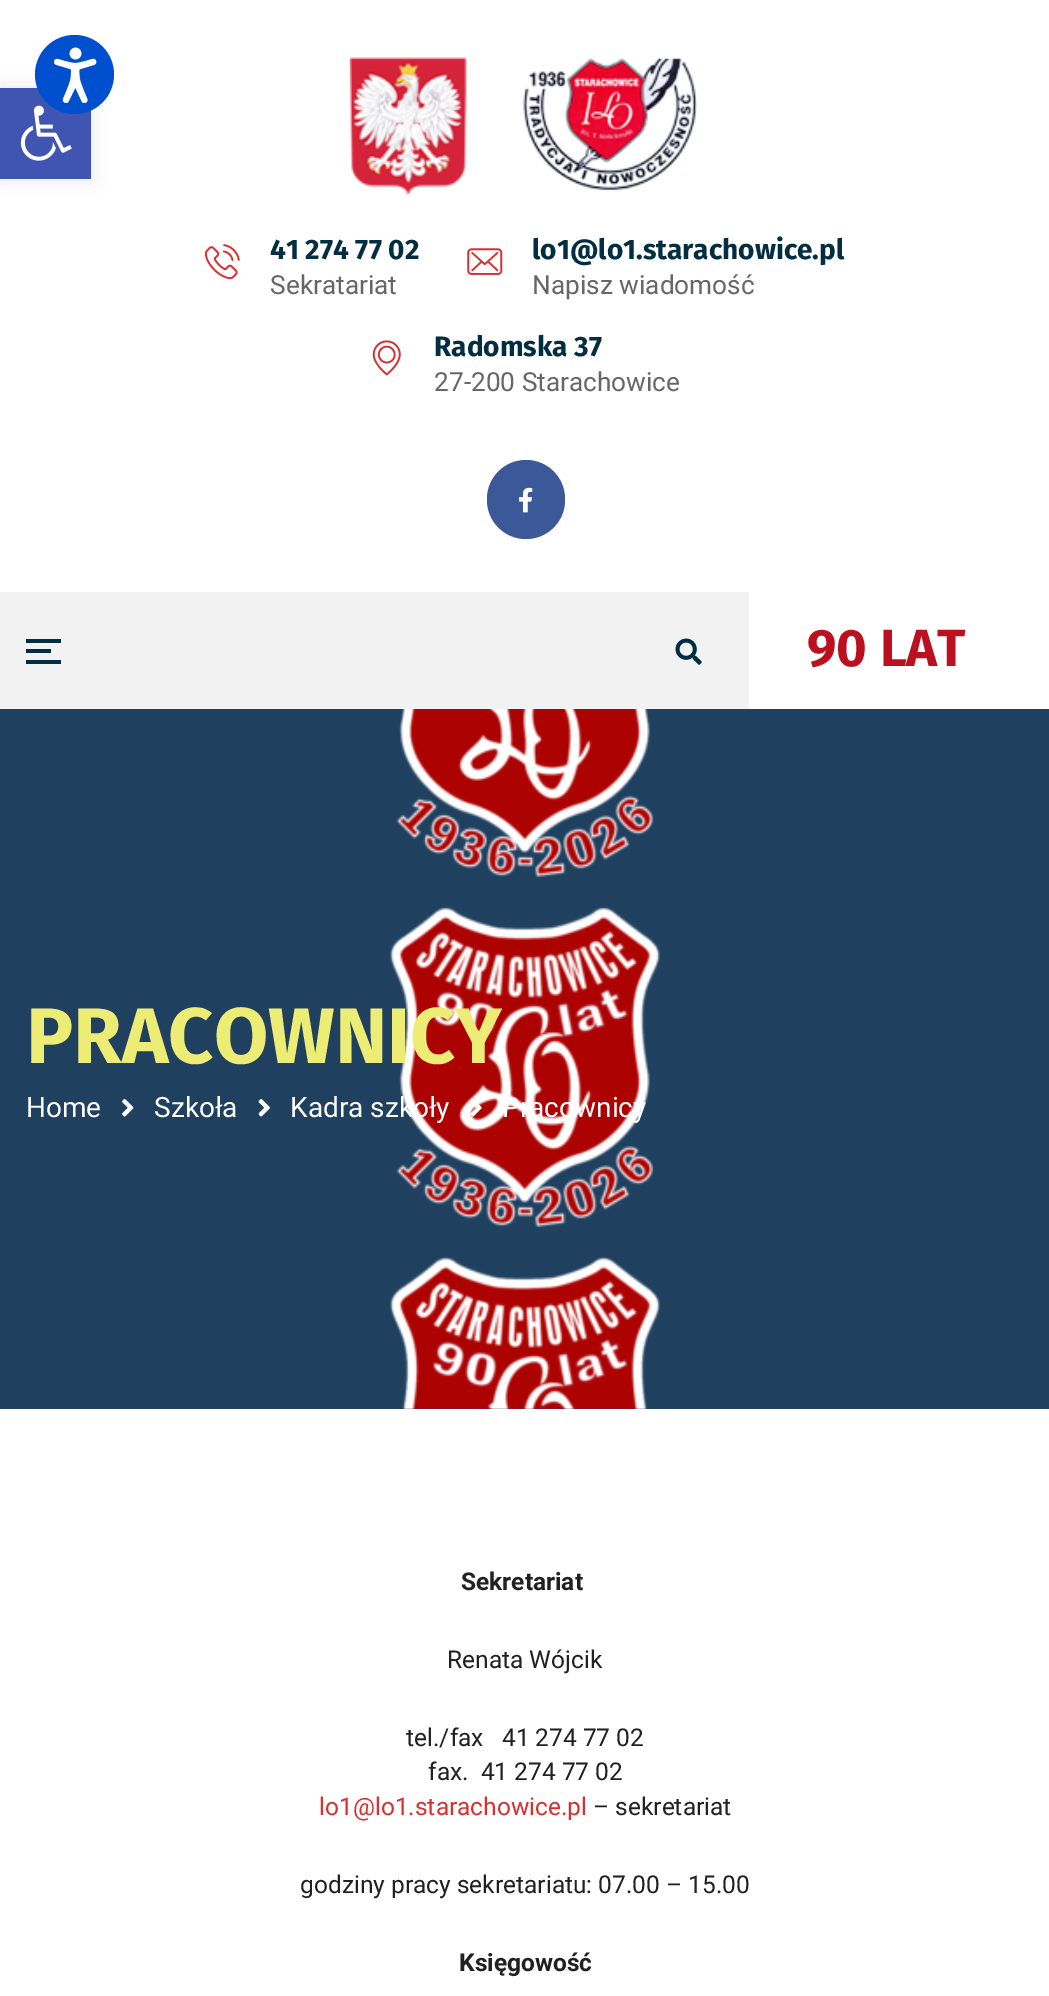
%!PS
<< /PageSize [1049 1996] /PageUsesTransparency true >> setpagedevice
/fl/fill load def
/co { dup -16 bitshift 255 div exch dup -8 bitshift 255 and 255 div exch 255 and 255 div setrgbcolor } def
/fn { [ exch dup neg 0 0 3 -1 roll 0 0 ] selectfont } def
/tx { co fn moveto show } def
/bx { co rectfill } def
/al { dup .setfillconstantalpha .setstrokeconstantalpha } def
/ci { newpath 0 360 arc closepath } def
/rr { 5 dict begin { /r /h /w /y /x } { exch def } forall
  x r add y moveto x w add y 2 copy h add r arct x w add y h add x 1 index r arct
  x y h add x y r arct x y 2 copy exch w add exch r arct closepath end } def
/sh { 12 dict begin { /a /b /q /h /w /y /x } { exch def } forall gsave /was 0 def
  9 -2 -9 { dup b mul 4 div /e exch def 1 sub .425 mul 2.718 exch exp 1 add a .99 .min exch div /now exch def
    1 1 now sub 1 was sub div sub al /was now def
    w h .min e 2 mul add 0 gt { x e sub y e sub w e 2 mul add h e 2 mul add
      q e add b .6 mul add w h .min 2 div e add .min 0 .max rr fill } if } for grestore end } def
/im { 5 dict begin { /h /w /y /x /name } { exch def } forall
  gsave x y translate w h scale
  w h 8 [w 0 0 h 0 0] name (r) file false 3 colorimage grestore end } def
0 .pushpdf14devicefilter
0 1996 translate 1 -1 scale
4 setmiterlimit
0 0 1049 1996 16#FFFFFF bx
16#000000 co
0 88 91 91 0 9 .1 sh
0 88 91 91 16#4054B2 bx
(media/2.raw) 20 105 52 56 im
16#004FCE co
74.5 74.5 39.5 ci fl
(media/1.raw) 53 47 44 56 im
(media/3.raw) 350 57 348 138 im
(media/4.raw) 204 244 36 36 im
(media/5.raw) 467 248 36 27 im
(media/6.raw) 372 340 29 36 im
16#3B5998 co
487 460 78 79 39 rr fl
(media/7.raw) 519 487 14 26 im
0 592 749 117 16#F2F2F2 bx
26 639 35 4 16#032E42 bx
26 649 25 4 16#032E42 bx
26 660 35 4 16#032E42 bx
(media/8.raw) 675 638 27 27 im
0 709 1049 700 16#204060 bx
(media/9.raw) 390 709 270 700 im
(media/10.raw) 122 1099 12 18 im
(media/11.raw) 258 1099 12 18 im
(media/12.raw) 470 1099 12 18 im
(41 274 77 02) 270 259 /FiraSans-Bold 28 16#032E42 tx
(Sekratariat) 270 294 /Roboto-Regular 26.25 16#676767 tx
(lo1@lo1.starachowice.pl) 532 259 /FiraSans-Bold 28 16#032E42 tx
(Napisz wiadomość) 532 294 /Roboto-Regular 26.25 16#676767 tx
(Radomska 37) 434 356 /FiraSans-Bold 28 16#032E42 tx
(27-200 Starachowice) 434 391 /Roboto-Regular 26.25 16#676767 tx
(90 LAT) 807 666 /FiraSans-Bold 52.5 16#BB1020 tx
(PRACOWNICY) 26 1063 /FiraSans-Bold 78.75 16#EDED76 tx
(Home) 26 1117 /Roboto-Regular 28 16#FFFFFF tx
(Szkoła) 154 1117 /Roboto-Regular 28 16#FFFFFF tx
(Kadra szkoły) 290 1117 /Roboto-Regular 28 16#FFFFFF tx
(Pracownicy) 502 1117 /Roboto-Regular 28 16#FFFFFF tx
(Sekretariat) 461 1590 /Roboto-Bold 24.5 16#212121 tx
(Renata Wójcik) 447 1668 /Roboto-Regular 24.5 16#212121 tx
(tel./fax   41 274 77 02) 406 1746 /Roboto-Regular 24.5 16#212121 tx
(fax.  41 274 77 02) 428 1780 /Roboto-Regular 24.5 16#212121 tx
(lo1@lo1.starachowice.pl) 319 1815 /Roboto-Regular 24.5 16#D83030 tx
(– sekretariat) 593 1815 /Roboto-Regular 24.5 16#212121 tx
(godziny pracy sekretariatu: 07.00 – 15.00) 300 1893 /Roboto-Regular 24.5 16#212121 tx
(Księgowość) 459 1971 /Roboto-Bold 24.5 16#212121 tx
.poppdf14devicefilter showpage
